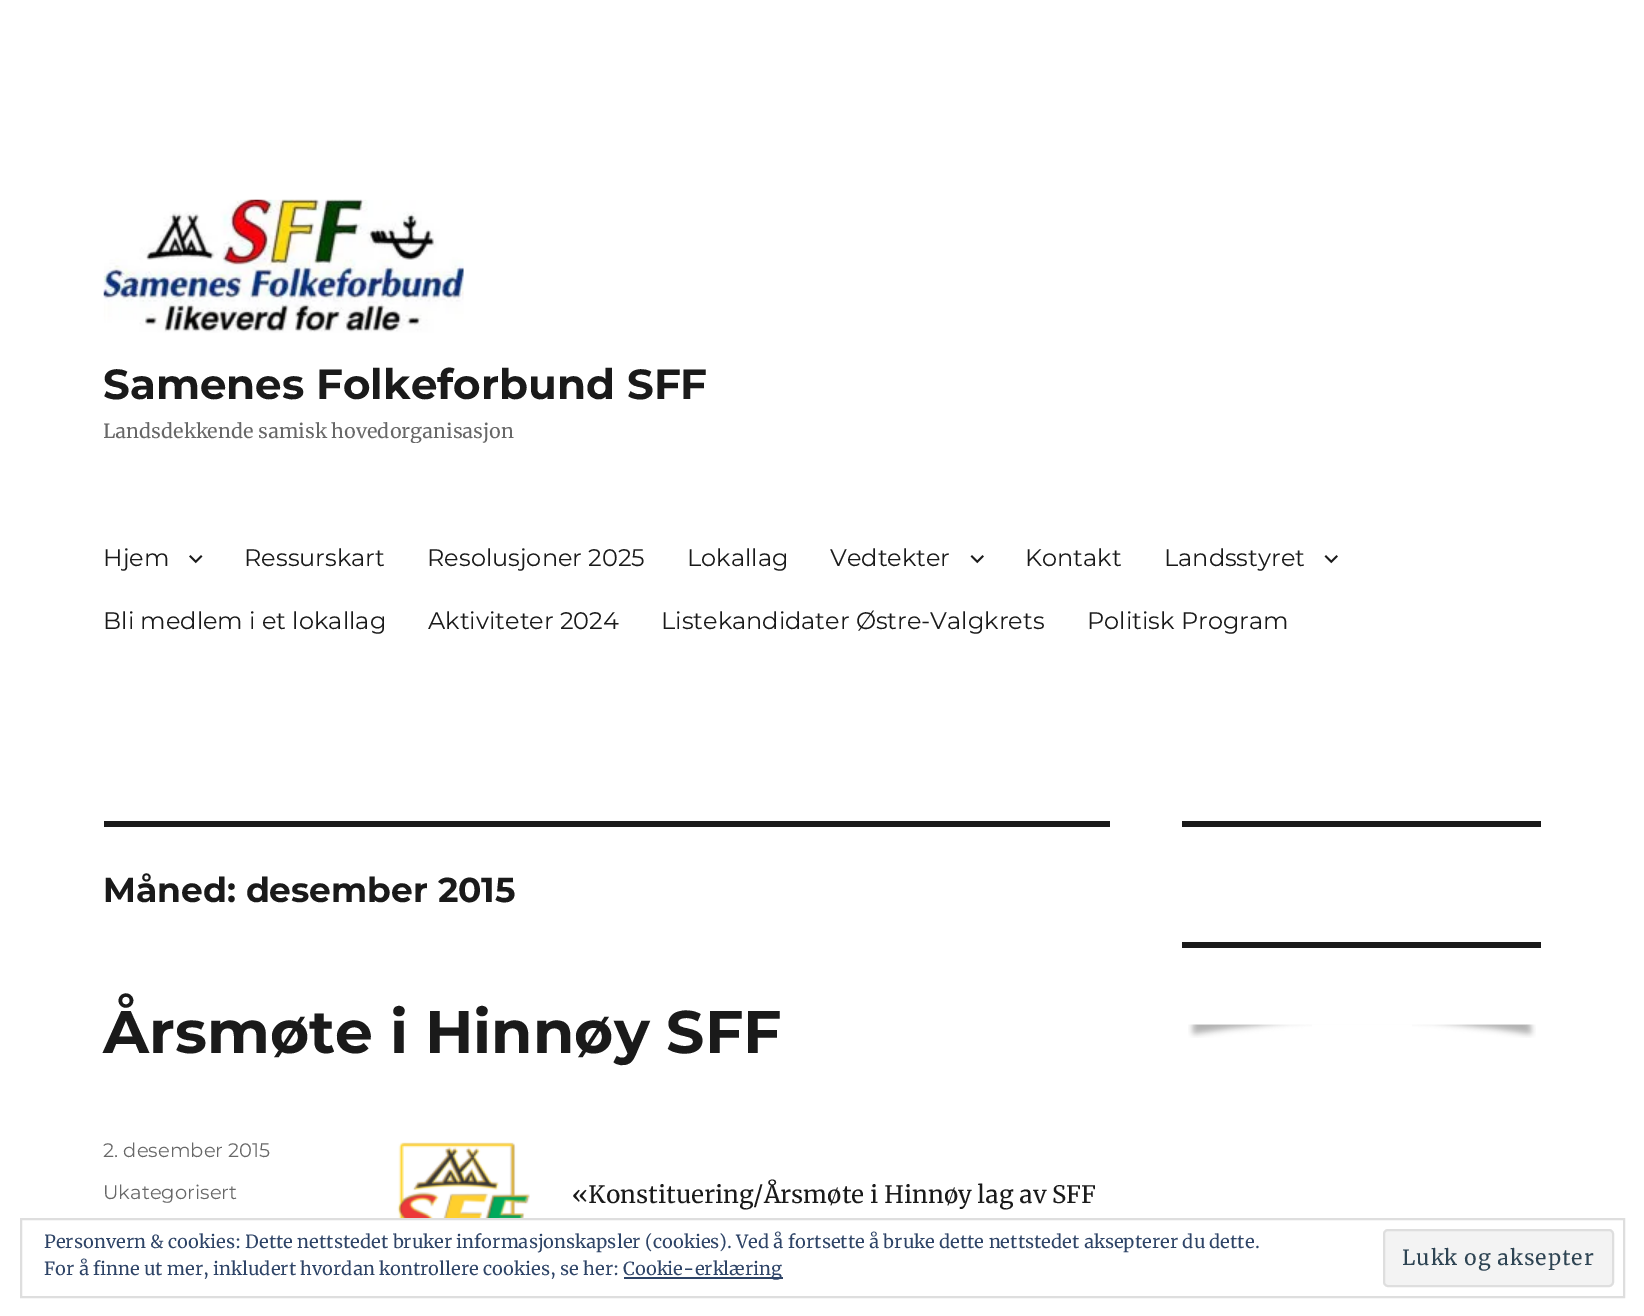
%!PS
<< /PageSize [1644 1316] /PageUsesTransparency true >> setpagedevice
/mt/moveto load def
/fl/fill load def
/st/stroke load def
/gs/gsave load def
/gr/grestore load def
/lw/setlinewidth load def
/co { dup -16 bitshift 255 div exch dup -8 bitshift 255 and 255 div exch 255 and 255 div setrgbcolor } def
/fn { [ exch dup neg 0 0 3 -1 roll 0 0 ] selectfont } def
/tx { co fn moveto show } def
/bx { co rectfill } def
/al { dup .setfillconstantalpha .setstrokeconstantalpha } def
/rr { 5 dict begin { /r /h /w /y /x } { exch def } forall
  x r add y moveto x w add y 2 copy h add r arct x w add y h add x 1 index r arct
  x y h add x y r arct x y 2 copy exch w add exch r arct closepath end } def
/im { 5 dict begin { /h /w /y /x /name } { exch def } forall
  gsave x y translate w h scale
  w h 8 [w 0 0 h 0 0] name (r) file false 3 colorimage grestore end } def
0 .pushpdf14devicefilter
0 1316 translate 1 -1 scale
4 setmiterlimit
0 0 1644 1316 16#FFFFFF bx
(media/1.raw) 103 199 361 134 im
(media/2.raw) 189 555 14 9 im
(media/3.raw) 970 555 14 9 im
(media/3.raw) 1324 555 14 9 im
104 821 1006 6 16#1A1A1A bx
(media/4.raw) 391 1142 139 76 im
1182 821 359 6 16#1A1A1A bx
1182 942 359 6 16#1A1A1A bx
(media/5.raw) 1188 1024 124 14 im
(media/6.raw) 1412 1024 124 14 im
0.1 al
1197 1024 329 1 16#F6F6F6 bx
1 al
16#DEDEDE co
2 lw
21 1219 1603 78 rectstroke
624 1277 159 2 16#2E4467 bx
16#F3F3F3 co
1384 1230 229 56 4 rr gs fl gr
16#DEDEDE co
st
(Samenes Folkeforbund SFF) 103 399 /Montserrat-Thin 42 16#1A1A1A tx
gs
104 200 604 243 rectclip
(Landsdekkende samisk hovedorganisasjon) 103 438 /Merriweather-Regular 19.5 16#686868 tx
gr
(Hjem) 103 566 /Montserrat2-Thin 24 16#1A1A1A tx
(Ressurskart) 244 566 /Montserrat2-Thin 24 16#1A1A1A tx
(Resolusjoner 2025) 427 566 /Montserrat2-Thin 24 16#1A1A1A tx
(Lokallag) 687 566 /Montserrat2-Thin 24 16#1A1A1A tx
(Vedtekter) 830 566 /Montserrat2-Thin 24 16#1A1A1A tx
(Kontakt) 1025 566 /Montserrat2-Thin 24 16#1A1A1A tx
(Landsstyret) 1164 566 /Montserrat2-Thin 24 16#1A1A1A tx
(Bli medlem i et lokallag) 103 629 /Montserrat2-Thin 24 16#1A1A1A tx
(Aktiviteter 2024) 428 629 /Montserrat2-Thin 24 16#1A1A1A tx
(Listekandidater Østre-Valgkrets) 661 629 /Montserrat2-Thin 24 16#1A1A1A tx
(Politisk Program) 1087 629 /Montserrat2-Thin 24 16#1A1A1A tx
(Måned: desember 2015) 103 902 /Montserrat-Thin 34.5 16#1A1A1A tx
(Årsmøte i Hinnøy SFF) 103 1053 /Montserrat-Thin 60 16#1A1A1A tx
(2. desember 2015) 103 1157 /Montserrat2-Thin 19.5 16#686868 tx
(Ukategorisert) 103 1199 /Montserrat2-Thin 19.5 16#686868 tx
(«Konstituering/Årsmøte i Hinnøy lag av SFF) 572 1203 /Merriweather-Regular 24 16#1A1A1A tx
(Personvern & cookies: Dette nettstedet bruker informasjonskapsler \(cookies\). Ved å fortsette å bruke dette nettstedet aksepterer du dette.) 44 1248 /Merriweather-Regular 18 16#2E4467 tx
(For å finne ut mer, inkludert hvordan kontrollere cookies, se her:) 44 1275 /Merriweather-Regular 18 16#2E4467 tx
(Cookie-erklæring) 623 1275 /Merriweather-Regular 18 16#2E4467 tx
/Merriweather-Regular 21 fn
16#2E4453 co
1402 1265 mt 1 0 (Lukk og aksepter) ashow
.poppdf14devicefilter showpage
